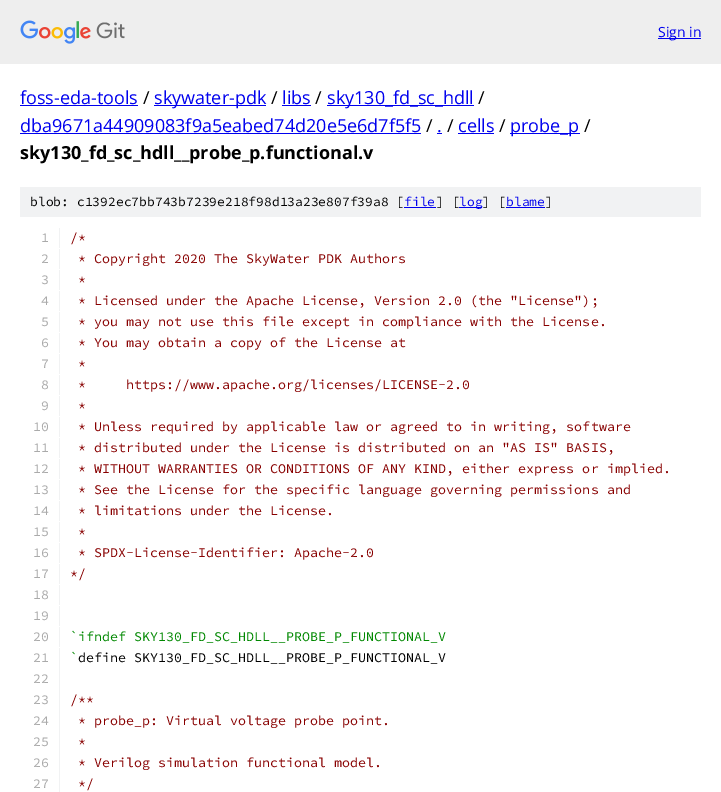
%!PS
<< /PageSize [721 792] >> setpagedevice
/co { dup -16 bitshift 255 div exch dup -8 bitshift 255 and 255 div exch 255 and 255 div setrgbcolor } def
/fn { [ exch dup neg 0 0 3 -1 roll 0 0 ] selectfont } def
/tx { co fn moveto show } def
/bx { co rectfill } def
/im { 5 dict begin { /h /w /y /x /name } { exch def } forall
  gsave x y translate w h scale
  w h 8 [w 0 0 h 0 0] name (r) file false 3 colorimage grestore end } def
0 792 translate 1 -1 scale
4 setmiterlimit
0 0 721 792 16#FFFFFF bx
0 0 721 64 16#EEEEEE bx
(media/1.raw) 20 20 105 24 im
658 38 43 1 16#0000EE bx
20 105 118 1 16#0000EE bx
154 105 112 1 16#0000EE bx
282 105 29 1 16#0000EE bx
327 105 147 1 16#0000EE bx
20 133 401 1 16#0000EE bx
437 133 5 1 16#0000EE bx
458 133 36 1 16#0000EE bx
510 133 70 1 16#0000EE bx
20 187 681 30 16#F1F2F3 bx
404 207 32 1 16#0000EE bx
459 207 23 1 16#0000EE bx
506 207 39 1 16#0000EE bx
59 228 1 20 16#F1F2F3 bx
59 249 1 20 16#F1F2F3 bx
59 270 1 20 16#F1F2F3 bx
59 291 1 20 16#F1F2F3 bx
59 312 1 20 16#F1F2F3 bx
59 333 1 20 16#F1F2F3 bx
59 354 1 20 16#F1F2F3 bx
59 375 1 20 16#F1F2F3 bx
59 396 1 20 16#F1F2F3 bx
59 417 1 20 16#F1F2F3 bx
59 438 1 20 16#F1F2F3 bx
59 459 1 20 16#F1F2F3 bx
59 480 1 20 16#F1F2F3 bx
59 501 1 20 16#F1F2F3 bx
59 522 1 20 16#F1F2F3 bx
59 543 1 20 16#F1F2F3 bx
59 564 1 20 16#F1F2F3 bx
59 585 1 20 16#F1F2F3 bx
59 606 1 20 16#F1F2F3 bx
59 627 1 20 16#F1F2F3 bx
59 648 1 144 16#F1F2F3 bx
(Sign in) 658 37 /OpenSans-Regular 14 16#0000EE tx
(foss-eda-tools) 20 104 /OpenSans-Regular 18 16#0000EE tx
(/) 143 104 /OpenSans-Regular 18 16#000000 tx
(skywater-pdk) 154 104 /OpenSans-Regular 18 16#0000EE tx
(/) 271 104 /OpenSans-Regular 18 16#000000 tx
(libs) 282 104 /OpenSans-Regular 18 16#0000EE tx
(/) 315 104 /OpenSans-Regular 18 16#000000 tx
(sky130_fd_sc_hdll) 327 104 /OpenSans-Regular 18 16#0000EE tx
(/) 478 104 /OpenSans-Regular 18 16#000000 tx
(dba9671a44909083f9a5eabed74d20e5e6d7f5f5) 20 132 /OpenSans-Regular 18 16#0000EE tx
(/) 426 132 /OpenSans-Regular 18 16#000000 tx
(.) 437 132 /OpenSans-Regular 18 16#0000EE tx
(/) 447 132 /OpenSans-Regular 18 16#000000 tx
(cells) 458 132 /OpenSans-Regular 18 16#0000EE tx
(/) 499 132 /OpenSans-Regular 18 16#000000 tx
(probe_p) 510 132 /OpenSans-Regular 18 16#0000EE tx
(/) 584 132 /OpenSans-Regular 18 16#000000 tx
(sky130_fd_sc_hdll__probe_p.functional.v) 20 159 /OpenSans-Bold 18 16#000000 tx
(blob: c1392ec7bb743b7239e218f98d13a23e807f39a8 [) 30 206 /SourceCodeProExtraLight-ExtraLight 13 16#000000 tx
(file) 404 206 /SourceCodeProExtraLight-ExtraLight 13 16#0000EE tx
(] [) 436 206 /SourceCodeProExtraLight-ExtraLight 13 16#000000 tx
(log) 459 206 /SourceCodeProExtraLight-ExtraLight 13 16#0000EE tx
(] [) 482 206 /SourceCodeProExtraLight-ExtraLight 13 16#000000 tx
(blame) 506 206 /SourceCodeProExtraLight-ExtraLight 13 16#0000EE tx
(]) 545 206 /SourceCodeProExtraLight-ExtraLight 13 16#000000 tx
(1) 41 242 /SourceCodeProExtraLight-ExtraLight 13.35 16#AAAAAA tx
(/*) 70 242 /SourceCodeProExtraLight-ExtraLight 13.35 16#880000 tx
(2) 41 263 /SourceCodeProExtraLight-ExtraLight 13.35 16#AAAAAA tx
(* Copyright 2020 The SkyWater PDK Authors) 78 263 /SourceCodeProExtraLight-ExtraLight 13.35 16#880000 tx
(3) 41 284 /SourceCodeProExtraLight-ExtraLight 13.35 16#AAAAAA tx
(*) 78 284 /SourceCodeProExtraLight-ExtraLight 13.35 16#880000 tx
(4) 41 305 /SourceCodeProExtraLight-ExtraLight 13.35 16#AAAAAA tx
(* Licensed under the Apache License, Version 2.0 \(the "License"\);) 78 305 /SourceCodeProExtraLight-ExtraLight 13.35 16#880000 tx
(5) 41 326 /SourceCodeProExtraLight-ExtraLight 13.35 16#AAAAAA tx
(* you may not use this file except in compliance with the License.) 78 326 /SourceCodeProExtraLight-ExtraLight 13.35 16#880000 tx
(6) 41 347 /SourceCodeProExtraLight-ExtraLight 13.35 16#AAAAAA tx
(* You may obtain a copy of the License at) 78 347 /SourceCodeProExtraLight-ExtraLight 13.35 16#880000 tx
(7) 41 368 /SourceCodeProExtraLight-ExtraLight 13.35 16#AAAAAA tx
(*) 78 368 /SourceCodeProExtraLight-ExtraLight 13.35 16#880000 tx
(8) 41 389 /SourceCodeProExtraLight-ExtraLight 13.35 16#AAAAAA tx
(*     https://www.apache.org/licenses/LICENSE-2.0) 78 389 /SourceCodeProExtraLight-ExtraLight 13.35 16#880000 tx
(9) 41 410 /SourceCodeProExtraLight-ExtraLight 13.35 16#AAAAAA tx
(*) 78 410 /SourceCodeProExtraLight-ExtraLight 13.35 16#880000 tx
(10) 33 431 /SourceCodeProExtraLight-ExtraLight 13.35 16#AAAAAA tx
(* Unless required by applicable law or agreed to in writing, software) 78 431 /SourceCodeProExtraLight-ExtraLight 13.35 16#880000 tx
(11) 33 452 /SourceCodeProExtraLight-ExtraLight 13.35 16#AAAAAA tx
(* distributed under the License is distributed on an "AS IS" BASIS,) 78 452 /SourceCodeProExtraLight-ExtraLight 13.35 16#880000 tx
(12) 33 473 /SourceCodeProExtraLight-ExtraLight 13.35 16#AAAAAA tx
(* WITHOUT WARRANTIES OR CONDITIONS OF ANY KIND, either express or implied.) 78 473 /SourceCodeProExtraLight-ExtraLight 13.35 16#880000 tx
(13) 33 494 /SourceCodeProExtraLight-ExtraLight 13.35 16#AAAAAA tx
(* See the License for the specific language governing permissions and) 78 494 /SourceCodeProExtraLight-ExtraLight 13.35 16#880000 tx
(14) 33 515 /SourceCodeProExtraLight-ExtraLight 13.35 16#AAAAAA tx
(* limitations under the License.) 78 515 /SourceCodeProExtraLight-ExtraLight 13.35 16#880000 tx
(15) 33 536 /SourceCodeProExtraLight-ExtraLight 13.35 16#AAAAAA tx
(*) 78 536 /SourceCodeProExtraLight-ExtraLight 13.35 16#880000 tx
(16) 33 557 /SourceCodeProExtraLight-ExtraLight 13.35 16#AAAAAA tx
(* SPDX-License-Identifier: Apache-2.0) 78 557 /SourceCodeProExtraLight-ExtraLight 13.35 16#880000 tx
(17) 33 578 /SourceCodeProExtraLight-ExtraLight 13.35 16#AAAAAA tx
(*/) 70 578 /SourceCodeProExtraLight-ExtraLight 13.35 16#880000 tx
(18) 33 599 /SourceCodeProExtraLight-ExtraLight 13.35 16#AAAAAA tx
(19) 33 620 /SourceCodeProExtraLight-ExtraLight 13.35 16#AAAAAA tx
(20) 33 641 /SourceCodeProExtraLight-ExtraLight 13.35 16#AAAAAA tx
(`ifndef SKY130_FD_SC_HDLL__PROBE_P_FUNCTIONAL_V) 70 641 /SourceCodeProExtraLight-ExtraLight 13.35 16#008800 tx
(21) 33 662 /SourceCodeProExtraLight-ExtraLight 13.35 16#AAAAAA tx
(`) 70 662 /SourceCodeProExtraLight-ExtraLight 13.35 16#008800 tx
(define SKY130_FD_SC_HDLL__PROBE_P_FUNCTIONAL_V) 78 662 /SourceCodeProExtraLight-ExtraLight 13.35 16#000000 tx
(22) 33 683 /SourceCodeProExtraLight-ExtraLight 13.35 16#AAAAAA tx
(23) 33 704 /SourceCodeProExtraLight-ExtraLight 13.35 16#AAAAAA tx
(/**) 70 704 /SourceCodeProExtraLight-ExtraLight 13.35 16#880000 tx
(24) 33 725 /SourceCodeProExtraLight-ExtraLight 13.35 16#AAAAAA tx
(* probe_p: Virtual voltage probe point.) 78 725 /SourceCodeProExtraLight-ExtraLight 13.35 16#880000 tx
(25) 33 746 /SourceCodeProExtraLight-ExtraLight 13.35 16#AAAAAA tx
(*) 78 746 /SourceCodeProExtraLight-ExtraLight 13.35 16#880000 tx
(26) 33 767 /SourceCodeProExtraLight-ExtraLight 13.35 16#AAAAAA tx
(* Verilog simulation functional model.) 78 767 /SourceCodeProExtraLight-ExtraLight 13.35 16#880000 tx
(27) 33 788 /SourceCodeProExtraLight-ExtraLight 13.35 16#AAAAAA tx
(*/) 78 788 /SourceCodeProExtraLight-ExtraLight 13.35 16#880000 tx
showpage
